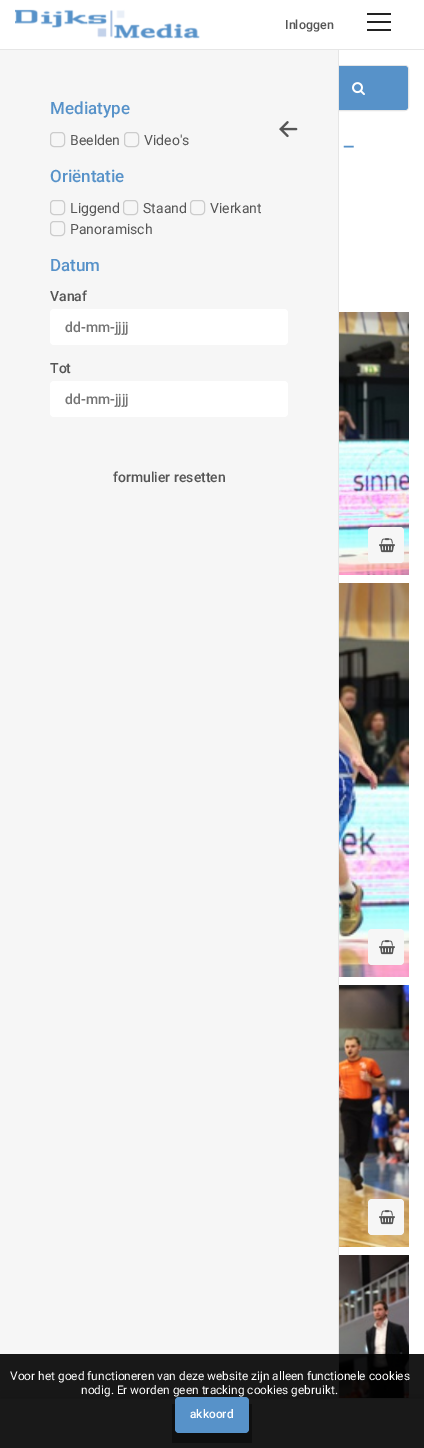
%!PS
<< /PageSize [424 1448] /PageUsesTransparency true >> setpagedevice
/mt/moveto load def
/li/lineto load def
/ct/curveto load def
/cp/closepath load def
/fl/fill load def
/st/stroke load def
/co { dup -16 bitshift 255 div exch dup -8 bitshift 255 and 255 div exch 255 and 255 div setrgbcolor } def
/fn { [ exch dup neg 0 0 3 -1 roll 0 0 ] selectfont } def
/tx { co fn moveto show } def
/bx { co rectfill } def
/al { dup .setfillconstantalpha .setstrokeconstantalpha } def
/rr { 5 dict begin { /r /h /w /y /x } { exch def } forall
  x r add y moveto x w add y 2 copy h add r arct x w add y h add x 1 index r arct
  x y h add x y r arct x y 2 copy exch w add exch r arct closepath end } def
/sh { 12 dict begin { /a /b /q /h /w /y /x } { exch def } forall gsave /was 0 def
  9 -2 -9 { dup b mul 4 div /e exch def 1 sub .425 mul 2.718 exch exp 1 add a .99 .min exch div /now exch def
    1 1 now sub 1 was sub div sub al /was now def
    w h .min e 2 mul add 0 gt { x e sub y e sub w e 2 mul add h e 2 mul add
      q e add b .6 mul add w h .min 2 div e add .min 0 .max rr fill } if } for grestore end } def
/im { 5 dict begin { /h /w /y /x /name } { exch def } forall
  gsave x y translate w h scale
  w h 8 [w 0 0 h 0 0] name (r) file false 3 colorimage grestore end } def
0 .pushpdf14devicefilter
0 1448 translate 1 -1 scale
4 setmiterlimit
0 0 424 1448 16#FFFFFF bx
0 49 424 1 16#E6E6E6 bx
(media/1.raw) 15 9 185 30 im
367 13 24 2 16#222222 bx
367 21 24 2 16#222222 bx
367 29 24 2 16#222222 bx
16#E6E6E6 co
15.5 65.5 393 45 3.5 rr st
16#5792C9 co
308 66 mt 405 66 li 406.5 66 408 67.5 408 69 ct 408 107 li 408 108.5 406.5 110 405 110 ct 308 110 li cp fl
0 50 338 1348 16#F6F6F6 bx
338 50 1 1348 16#E6E6E6 bx
(media/8.raw) 339 1255 70 143 im
16#000000 co
0 1403 424 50 0 7.5 .4 sh
0 1399 424 49 16#FFFFFF bx
0 1398 424 1 16#E6E6E6 bx
172 1404 80 39 16#999999 bx
16#CCCCCC co
50.5 132.5 14 14 3.5 rr st
124.5 132.5 14 14 3.5 rr st
50.5 200.5 14 14 3.5 rr st
123.5 200.5 14 14 3.5 rr st
190.5 200.5 14 14 3.5 rr st
50.5 221.5 14 14 3.5 rr st
16#FFFFFF co
50 309 238 36 4 rr fl
50 381 238 36 4 rr fl
(media/2.raw) 279 121 19 17 im
(media/3.raw) 352 82 13 13 im
(media/4.raw) 339 312 70 263 im
16#F6F6F6 co
368 527 36 36 4 rr fl
(media/5.raw) 379 538 16 15 im
(media/6.raw) 339 583 70 394 im
368 929 36 36 4 rr fl
(media/5.raw) 379 940 16 15 im
(media/7.raw) 339 985 70 262 im
368 1199 36 36 4 rr fl
(media/5.raw) 379 1210 16 15 im
0.9 al
0 1354 424 94 16#000000 bx
1 al
16#5792C9 co
175 1397 74 36 4 rr fl
(Inloggen) 285 29 /Roboto-Medium 12.5 16#555555 tx
(Mediatype) 50 114 /Roboto-Medium 17 16#5792C9 tx
(Beelden) 70 145 /Roboto-Regular 14 16#555555 tx
(Video's) 144 145 /Roboto-Regular 14 16#555555 tx
(Oriëntatie) 50 182 /Roboto-Medium 17 16#5792C9 tx
(Liggend) 70 213 /Roboto-Regular 14 16#555555 tx
(Staand) 143 213 /Roboto-Regular 14 16#555555 tx
(Vierkant) 210 213 /Roboto-Regular 14 16#555555 tx
(Panoramisch) 70 234 /Roboto-Regular 14 16#555555 tx
(Datum) 50 271 /Roboto-Medium 17 16#5792C9 tx
(Vanaf) 50 301 /Roboto-Medium 14 16#555555 tx
(dd-mm-jjjj) 65 332 /Roboto-Medium 14 16#757575 tx
(Tot) 50 373 /Roboto-Medium 14 16#555555 tx
(dd-mm-jjjj) 65 404 /Roboto-Medium 14 16#757575 tx
(formulier resetten) 113 482 /Roboto-Medium 14 16#555555 tx
(-) 342 158 /OpenSans-Light 42 16#5792C9 tx
(Voor het goed functioneren van deze website zijn alleen functionele cookies) 10 1380 /Roboto-Regular 11.9 16#FFFFFF tx
(nodig. Er worden geen tracking cookies gebruikt.) 81 1394 /Roboto-Regular 11.9 16#FFFFFF tx
(akkoord) 190 1418 /Roboto-Medium 11.9 16#FFFFFF tx
.poppdf14devicefilter showpage
